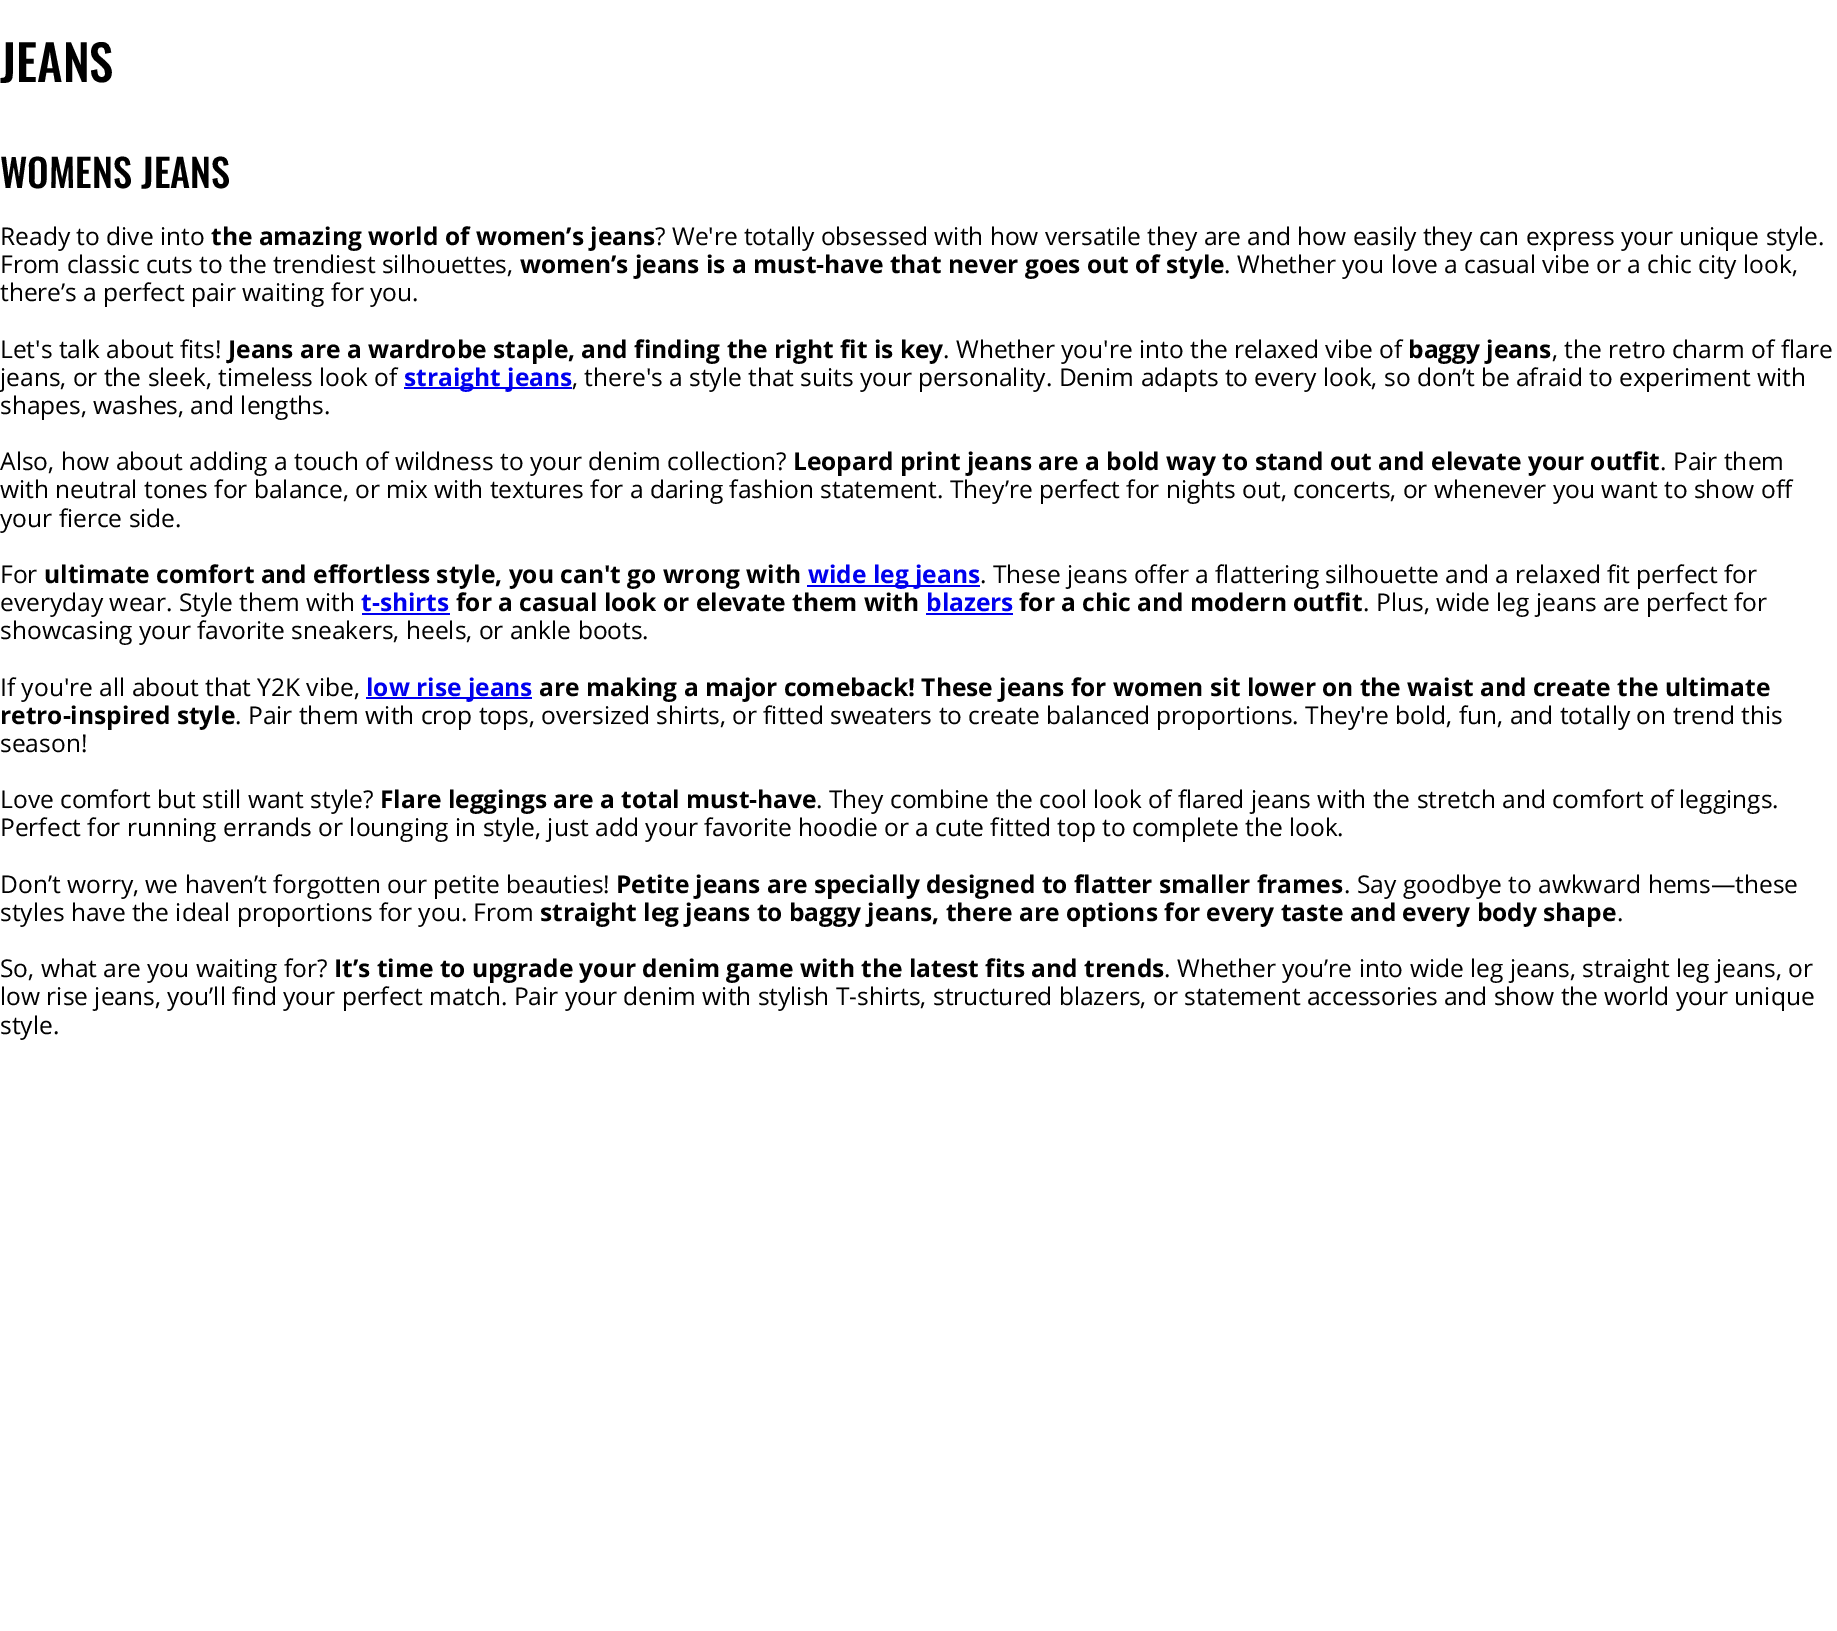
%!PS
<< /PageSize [1837 1631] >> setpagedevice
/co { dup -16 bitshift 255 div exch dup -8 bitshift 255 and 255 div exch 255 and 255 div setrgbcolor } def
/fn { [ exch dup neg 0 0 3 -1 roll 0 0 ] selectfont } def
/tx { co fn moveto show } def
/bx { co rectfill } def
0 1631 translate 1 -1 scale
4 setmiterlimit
0 0 1837 1631 16#FFFFFF bx
404 387 168 2 16#0000EE bx
807 585 173 2 16#0000EE bx
362 613 88 2 16#0000EE bx
926 613 87 2 16#0000EE bx
366 697 166 2 16#0000EE bx
(JEANS) 0 82 /Oswald-Medium 49 16#000000 tx
(WOMENS JEANS) 0 188 /Oswald-Medium 38.5 16#000000 tx
(Ready to dive into) 0 245 /OpenSans-Regular 24.5 16#000000 tx
(the amazing world of women’s jeans) 211 245 /OpenSans-Bold 24.5 16#000000 tx
(? We're totally obsessed with how versatile they are and how easily they can express your unique style.) 655 245 /OpenSans-Regular 24.5 16#000000 tx
(From classic cuts to the trendiest silhouettes,) 0 273 /OpenSans-Regular 24.5 16#000000 tx
(women’s jeans is a must-have that never goes out of style) 520 273 /OpenSans-Bold 24.5 16#000000 tx
(. Whether you love a casual vibe or a chic city look,) 1224 273 /OpenSans-Regular 24.5 16#000000 tx
(there’s a perfect pair waiting for you.) 0 301 /OpenSans-Regular 24.5 16#000000 tx
(Let's talk about fits!) 0 358 /OpenSans-Regular 24.5 16#000000 tx
(Jeans are a wardrobe staple, and finding the right fit is key) 228 358 /OpenSans-Bold 24.5 16#000000 tx
(. Whether you're into the relaxed vibe of) 943 358 /OpenSans-Regular 24.5 16#000000 tx
(baggy jeans) 1408 358 /OpenSans-Bold 24.5 16#000000 tx
(, the retro charm of flare) 1552 358 /OpenSans-Regular 24.5 16#000000 tx
(jeans, or the sleek, timeless look of) 0 386 /OpenSans-Regular 24.5 16#000000 tx
(straight jeans) 404 386 /OpenSans-Bold 24.5 16#0000EE tx
(, there's a style that suits your personality. Denim adapts to every look, so don’t be afraid to experiment with) 572 386 /OpenSans-Regular 24.5 16#000000 tx
(shapes, washes, and lengths.) 0 414 /OpenSans-Regular 24.5 16#000000 tx
(Also, how about adding a touch of wildness to your denim collection?) 0 470 /OpenSans-Regular 24.5 16#000000 tx
(Leopard print jeans are a bold way to stand out and elevate your outfit) 793 470 /OpenSans-Bold 24.5 16#000000 tx
(. Pair them) 1660 470 /OpenSans-Regular 24.5 16#000000 tx
(with neutral tones for balance, or mix with textures for a daring fashion statement. They’re perfect for nights out, concerts, or whenever you want to show off) 0 498 /OpenSans-Regular 24.5 16#000000 tx
(your fierce side.) 0 527 /OpenSans-Regular 24.5 16#000000 tx
(For) 0 583 /OpenSans-Regular 24.5 16#000000 tx
(ultimate comfort and effortless style, you can't go wrong with) 44 583 /OpenSans-Bold 24.5 16#000000 tx
(wide leg jeans) 808 583 /OpenSans-Bold 24.5 16#0000EE tx
(. These jeans offer a flattering silhouette and a relaxed fit perfect for) 980 583 /OpenSans-Regular 24.5 16#000000 tx
(everyday wear. Style them with) 0 611 /OpenSans-Regular 24.5 16#000000 tx
(t-shirts) 361 611 /OpenSans-Bold 24.5 16#0000EE tx
(for a casual look or elevate them with) 456 611 /OpenSans-Bold 24.5 16#000000 tx
(blazers) 926 611 /OpenSans-Bold 24.5 16#0000EE tx
(for a chic and modern outfit) 1019 611 /OpenSans-Bold 24.5 16#000000 tx
(. Plus, wide leg jeans are perfect for) 1363 611 /OpenSans-Regular 24.5 16#000000 tx
(showcasing your favorite sneakers, heels, or ankle boots.) 0 639 /OpenSans-Regular 24.5 16#000000 tx
(If you're all about that Y2K vibe,) 0 696 /OpenSans-Regular 24.5 16#000000 tx
(low rise jeans) 366 696 /OpenSans-Bold 24.5 16#0000EE tx
(are making a major comeback! These jeans for women sit lower on the waist and create the ultimate) 539 696 /OpenSans-Bold 24.5 16#000000 tx
(retro-inspired style) 0 724 /OpenSans-Bold 24.5 16#000000 tx
(. Pair them with crop tops, oversized shirts, or fitted sweaters to create balanced proportions. They're bold, fun, and totally on trend this) 235 724 /OpenSans-Regular 24.5 16#000000 tx
(season!) 0 752 /OpenSans-Regular 24.5 16#000000 tx
(Love comfort but still want style?) 0 808 /OpenSans-Regular 24.5 16#000000 tx
(Flare leggings are a total must-have) 380 808 /OpenSans-Bold 24.5 16#000000 tx
(. They combine the cool look of flared jeans with the stretch and comfort of leggings.) 816 808 /OpenSans-Regular 24.5 16#000000 tx
(Perfect for running errands or lounging in style, just add your favorite hoodie or a cute fitted top to complete the look.) 0 836 /OpenSans-Regular 24.5 16#000000 tx
(Don’t worry, we haven’t forgotten our petite beauties!) 0 893 /OpenSans-Regular 24.5 16#000000 tx
(Petite jeans are specially designed to flatter smaller frames) 616 893 /OpenSans-Bold 24.5 16#000000 tx
(. Say goodbye to awkward hems—these) 1344 893 /OpenSans-Regular 24.5 16#000000 tx
(styles have the ideal proportions for you. From) 0 921 /OpenSans-Regular 24.5 16#000000 tx
(straight leg jeans to baggy jeans, there are options for every taste and every body shape) 540 921 /OpenSans-Bold 24.5 16#000000 tx
(.) 1617 921 /OpenSans-Regular 24.5 16#000000 tx
(So, what are you waiting for?) 0 977 /OpenSans-Regular 24.5 16#000000 tx
(It’s time to upgrade your denim game with the latest fits and trends) 334 977 /OpenSans-Bold 24.5 16#000000 tx
(. Whether you’re into wide leg jeans, straight leg jeans, or) 1164 977 /OpenSans-Regular 24.5 16#000000 tx
(low rise jeans, you’ll find your perfect match. Pair your denim with stylish T-shirts, structured blazers, or statement accessories and show the world your unique) 0 1005 /OpenSans-Regular 24.5 16#000000 tx
(style.) 0 1034 /OpenSans-Regular 24.5 16#000000 tx
showpage
